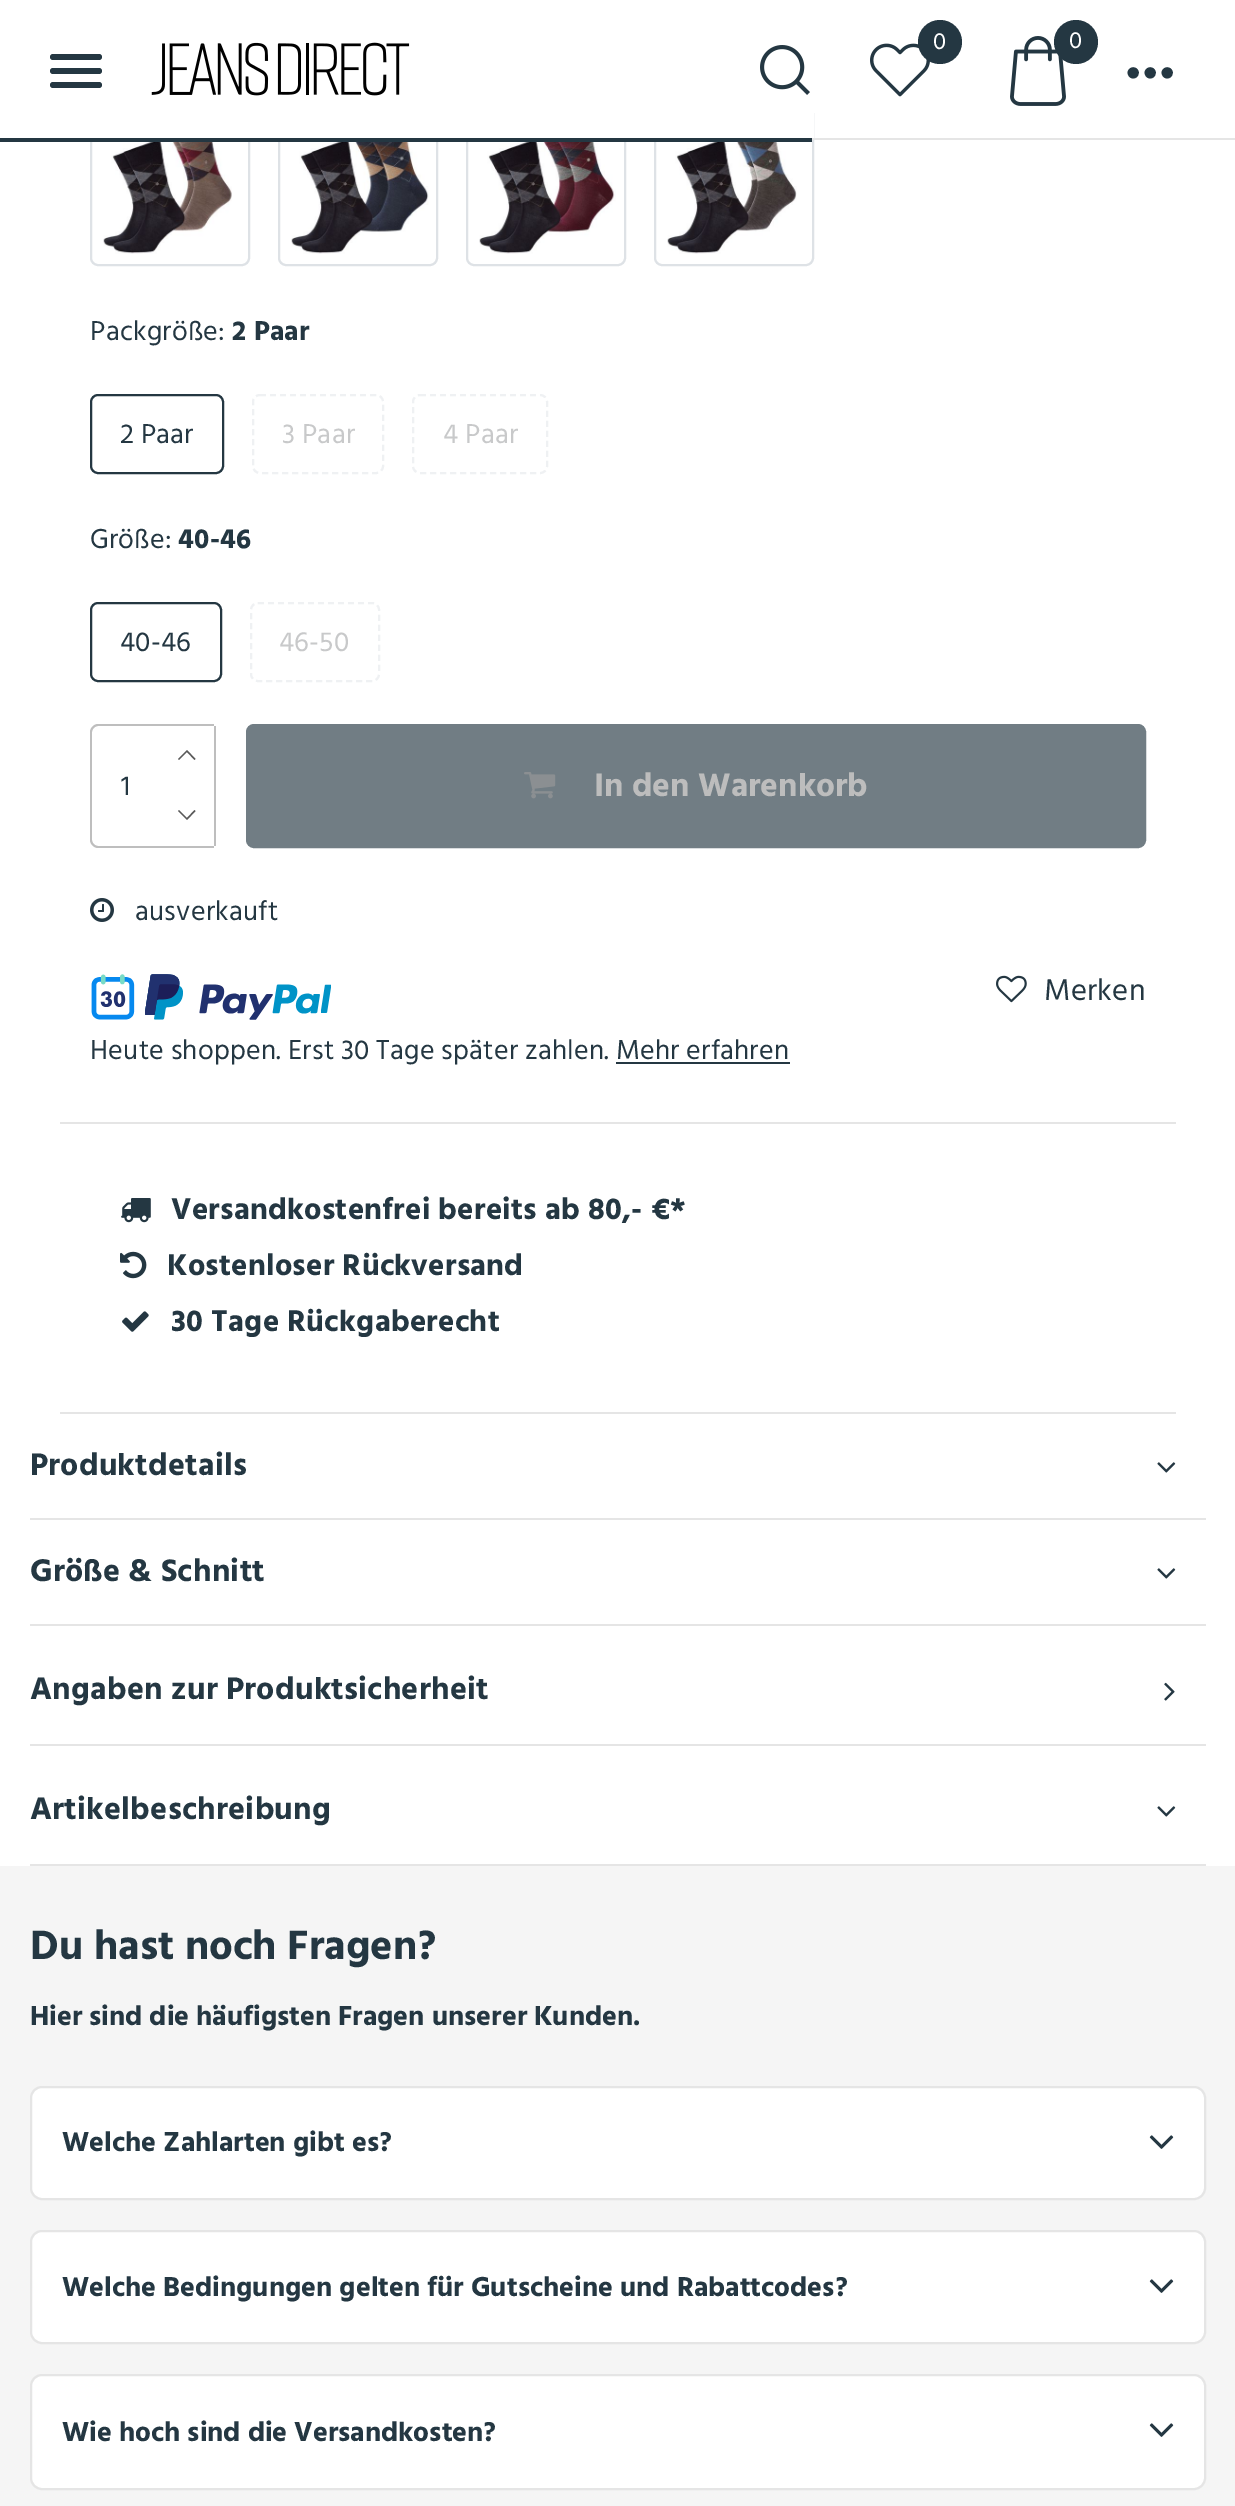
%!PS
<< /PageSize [1235 2506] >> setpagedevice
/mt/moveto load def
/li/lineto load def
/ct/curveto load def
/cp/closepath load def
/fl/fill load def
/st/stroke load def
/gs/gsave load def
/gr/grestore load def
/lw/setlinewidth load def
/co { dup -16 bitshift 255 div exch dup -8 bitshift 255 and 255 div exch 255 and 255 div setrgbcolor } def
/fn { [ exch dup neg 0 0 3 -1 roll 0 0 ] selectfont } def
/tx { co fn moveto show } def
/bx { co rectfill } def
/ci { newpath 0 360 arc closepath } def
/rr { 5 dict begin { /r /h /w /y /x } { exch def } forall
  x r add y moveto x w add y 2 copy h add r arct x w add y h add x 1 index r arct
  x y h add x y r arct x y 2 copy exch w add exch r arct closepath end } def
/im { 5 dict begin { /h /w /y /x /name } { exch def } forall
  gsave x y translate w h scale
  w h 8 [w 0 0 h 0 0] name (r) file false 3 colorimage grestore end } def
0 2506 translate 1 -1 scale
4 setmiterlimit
0 0 1235 2506 16#FFFFFF bx
16#DEE2E6 co
2 lw
91 107 158 158 7 rr st
279 107 158 158 7 rr st
467 107 158 158 7 rr st
655 107 158 158 7 rr st
90 106 724 32 16#FFFFFF bx
812 138 423 2 16#E5E5E5 bx
16#243742 co
50 68 52 6 3 rr fl
50 54 52 6 3 rr fl
50 82 52 6 3 rr fl
(media/1.raw) 151 42 259 54 im
(media/2.raw) 870 43 60 54 im
940 42 22 ci fl
(media/3.raw) 1010 36 56 70 im
1076 42 22 ci fl
(media/4.raw) 760 45 50 50 im
0 138 812 4 16#243742 bx
(media/5.raw) 103 142 129 112 im
(media/6.raw) 291 142 138 112 im
(media/7.raw) 479 142 137 112 im
(media/8.raw) 667 142 130 112 im
91 395 132 78 7 rr st
16#EFF1F3 co
[6 4] 0 setdash
260 395 mt 376 395 li 380 395 383 398 383 402 ct 383 466 li 383 470 380 473 376 473 ct 260 473 li 256 473 253 470 253 466 ct 253 402 li 253 398 256 395 260 395 ct cp st
420 395 mt 540 395 li 544 395 547 398 547 402 ct 547 466 li 547 470 544 473 540 473 ct 420 473 li 416 473 413 470 413 466 ct 413 402 li 413 398 416 395 420 395 ct cp st
16#243742 co
[] 0 setdash
91 603 130 78 7 rr st
16#EFF1F3 co
[6 4] 0 setdash
258 603 mt 372 603 li 376 603 379 606 379 610 ct 379 674 li 379 678 376 681 372 681 ct 258 681 li 254 681 251 678 251 674 ct 251 610 li 251 606 254 603 258 603 ct cp st
16#BEBEBE co
98 724 mt 160 724 li 160 848 li 98 848 li 94 848 90 844 90 840 ct 90 732 li 90 728 94 724 98 724 ct cp 98 726 mt 160 726 li 160 846 li 98 846 li 95 846 92 843 92 840 ct 92 732 li 92 729 95 726 98 726 ct cp eofill
160 724 54 2 16#BEBEBE bx
214 726 2 120 16#BEBEBE bx
160 846 54 2 16#BEBEBE bx
16#595959 co
194.5 760 mt 187 752 li 179 760 li 178 759 li 187 750 li 195.5 759 li cp fl
187 820 mt 178 811 li 179 810 li 187 818 li 194.5 810 li 195.5 811 li cp fl
16#717D84 co
247 725 898 122 7 rr gs fl gr
[] 0 setdash
st
(media/9.raw) 524 772 32 27 im
(media/10.raw) 90 898 24 24 im
(media/11.raw) 996 975 31 28 im
(media/12.raw) 91 974 240 46 im
616 1062 174 2 16#243742 bx
60 1122 1116 2 16#E5E5E5 bx
60 1412 1116 2 16#E5E5E5 bx
(media/13.raw) 121 1198 30 25 im
(media/14.raw) 120 1251 27 28 im
(media/15.raw) 122 1311 27 21 im
30 1518 1176 2 16#E5E5E5 bx
(media/16.raw) 1157 1462 19 11 im
30 1624 1176 2 16#E5E5E5 bx
(media/16.raw) 1157 1568 19 11 im
30 1744 1176 2 16#E5E5E5 bx
(media/17.raw) 1164 1682 11 19 im
30 1864 1176 2 16#E5E5E5 bx
(media/16.raw) 1157 1806 19 11 im
0 1866 1235 640 16#F5F5F5 bx
16#FFFFFF co
31 2087 1174 112 11 rr gs fl gr
16#E5E5E5 co
st
(media/18.raw) 1149 2135 25 14 im
16#FFFFFF co
31 2231 1174 112 11 rr gs fl gr
16#E5E5E5 co
st
(media/18.raw) 1149 2279 25 14 im
16#FFFFFF co
31 2375 1174 114 11 rr gs fl gr
16#E5E5E5 co
st
(media/18.raw) 1149 2423 25 14 im
/HindSiliguri-Regular 24 fn
16#FFFFFF co
933 49 mt .28 0 (0) ashow
1069 48 mt .28 0 (0) ashow
/HindSiliguri-Bold 64 fn
16#243742 co
1125 78 mt .28 0 (...) ashow
/HindSiliguri-Regular 28 fn
90 340 mt .28 0 (Packgröße:) ashow
/HindSiliguri-Bold 28 fn
232 340 mt .28 0 (2 Paar) ashow
/HindSiliguri-Regular 28 fn
120 443 mt .28 0 (2 Paar) ashow
16#C8C9CA co
282 443 mt .28 0 (3 Paar) ashow
443 443 mt .28 0 (4 Paar) ashow
16#243742 co
90 548 mt .28 0 (Größe:) ashow
/HindSiliguri-Bold 28 fn
178 548 mt .28 0 (40-46) ashow
/HindSiliguri-Regular 28 fn
120 651 mt .28 0 (40-46) ashow
16#C8C9CA co
279 651 mt .28 0 (46-50) ashow
(1) 121 795 /HindSiliguri-Regular 28 16#243742 tx
(In den Warenkorb) 594 796 /HindSiliguri-Bold 33.5 16#BDBDBD tx
/HindSiliguri-Regular 28 fn
16#243742 co
135 920 mt .28 0 (ausverkauft) ashow
/HindSiliguri-Regular 30.75 fn
1044 1000 mt .28 0 (Merken) ashow
/HindSiliguri-Regular 28 fn
90 1059 mt .28 0 (Heute shoppen. Erst 30 Tage später zahlen. Mehr erfahren) ashow
/HindSiliguri-Bold 30.75 fn
171 1219 mt .28 0 (Versandkostenfrei bereits ab 80,- €*) ashow
167 1275 mt .28 0 (Kostenloser Rückversand) ashow
171 1331 mt .28 0 (30 Tage Rückgaberecht) ashow
/HindSiliguri-Bold 32 fn
30 1475 mt .28 0 (Produktdetails) ashow
30 1581 mt .28 0 (Größe & Schnitt) ashow
30 1699 mt .28 0 (Angaben zur Produktsicherheit) ashow
30 1819 mt .28 0 (Artikelbeschreibung) ashow
(Du hast noch Fragen?) 30 1959 /HindSiliguri-Bold 42 16#243742 tx
(Hier sind die häufigsten Fragen unserer Kunden.) 30 2025 /HindSiliguri-Bold 28 16#243742 tx
(Welche Zahlarten gibt es?) 62 2151 /HindSiliguri-Bold 28 16#243742 tx
(Welche Bedingungen gelten für Gutscheine und Rabattcodes?) 62 2296 /HindSiliguri-Bold 28 16#243742 tx
(Wie hoch sind die Versandkosten?) 62 2441 /HindSiliguri-Bold 28 16#243742 tx
showpage
